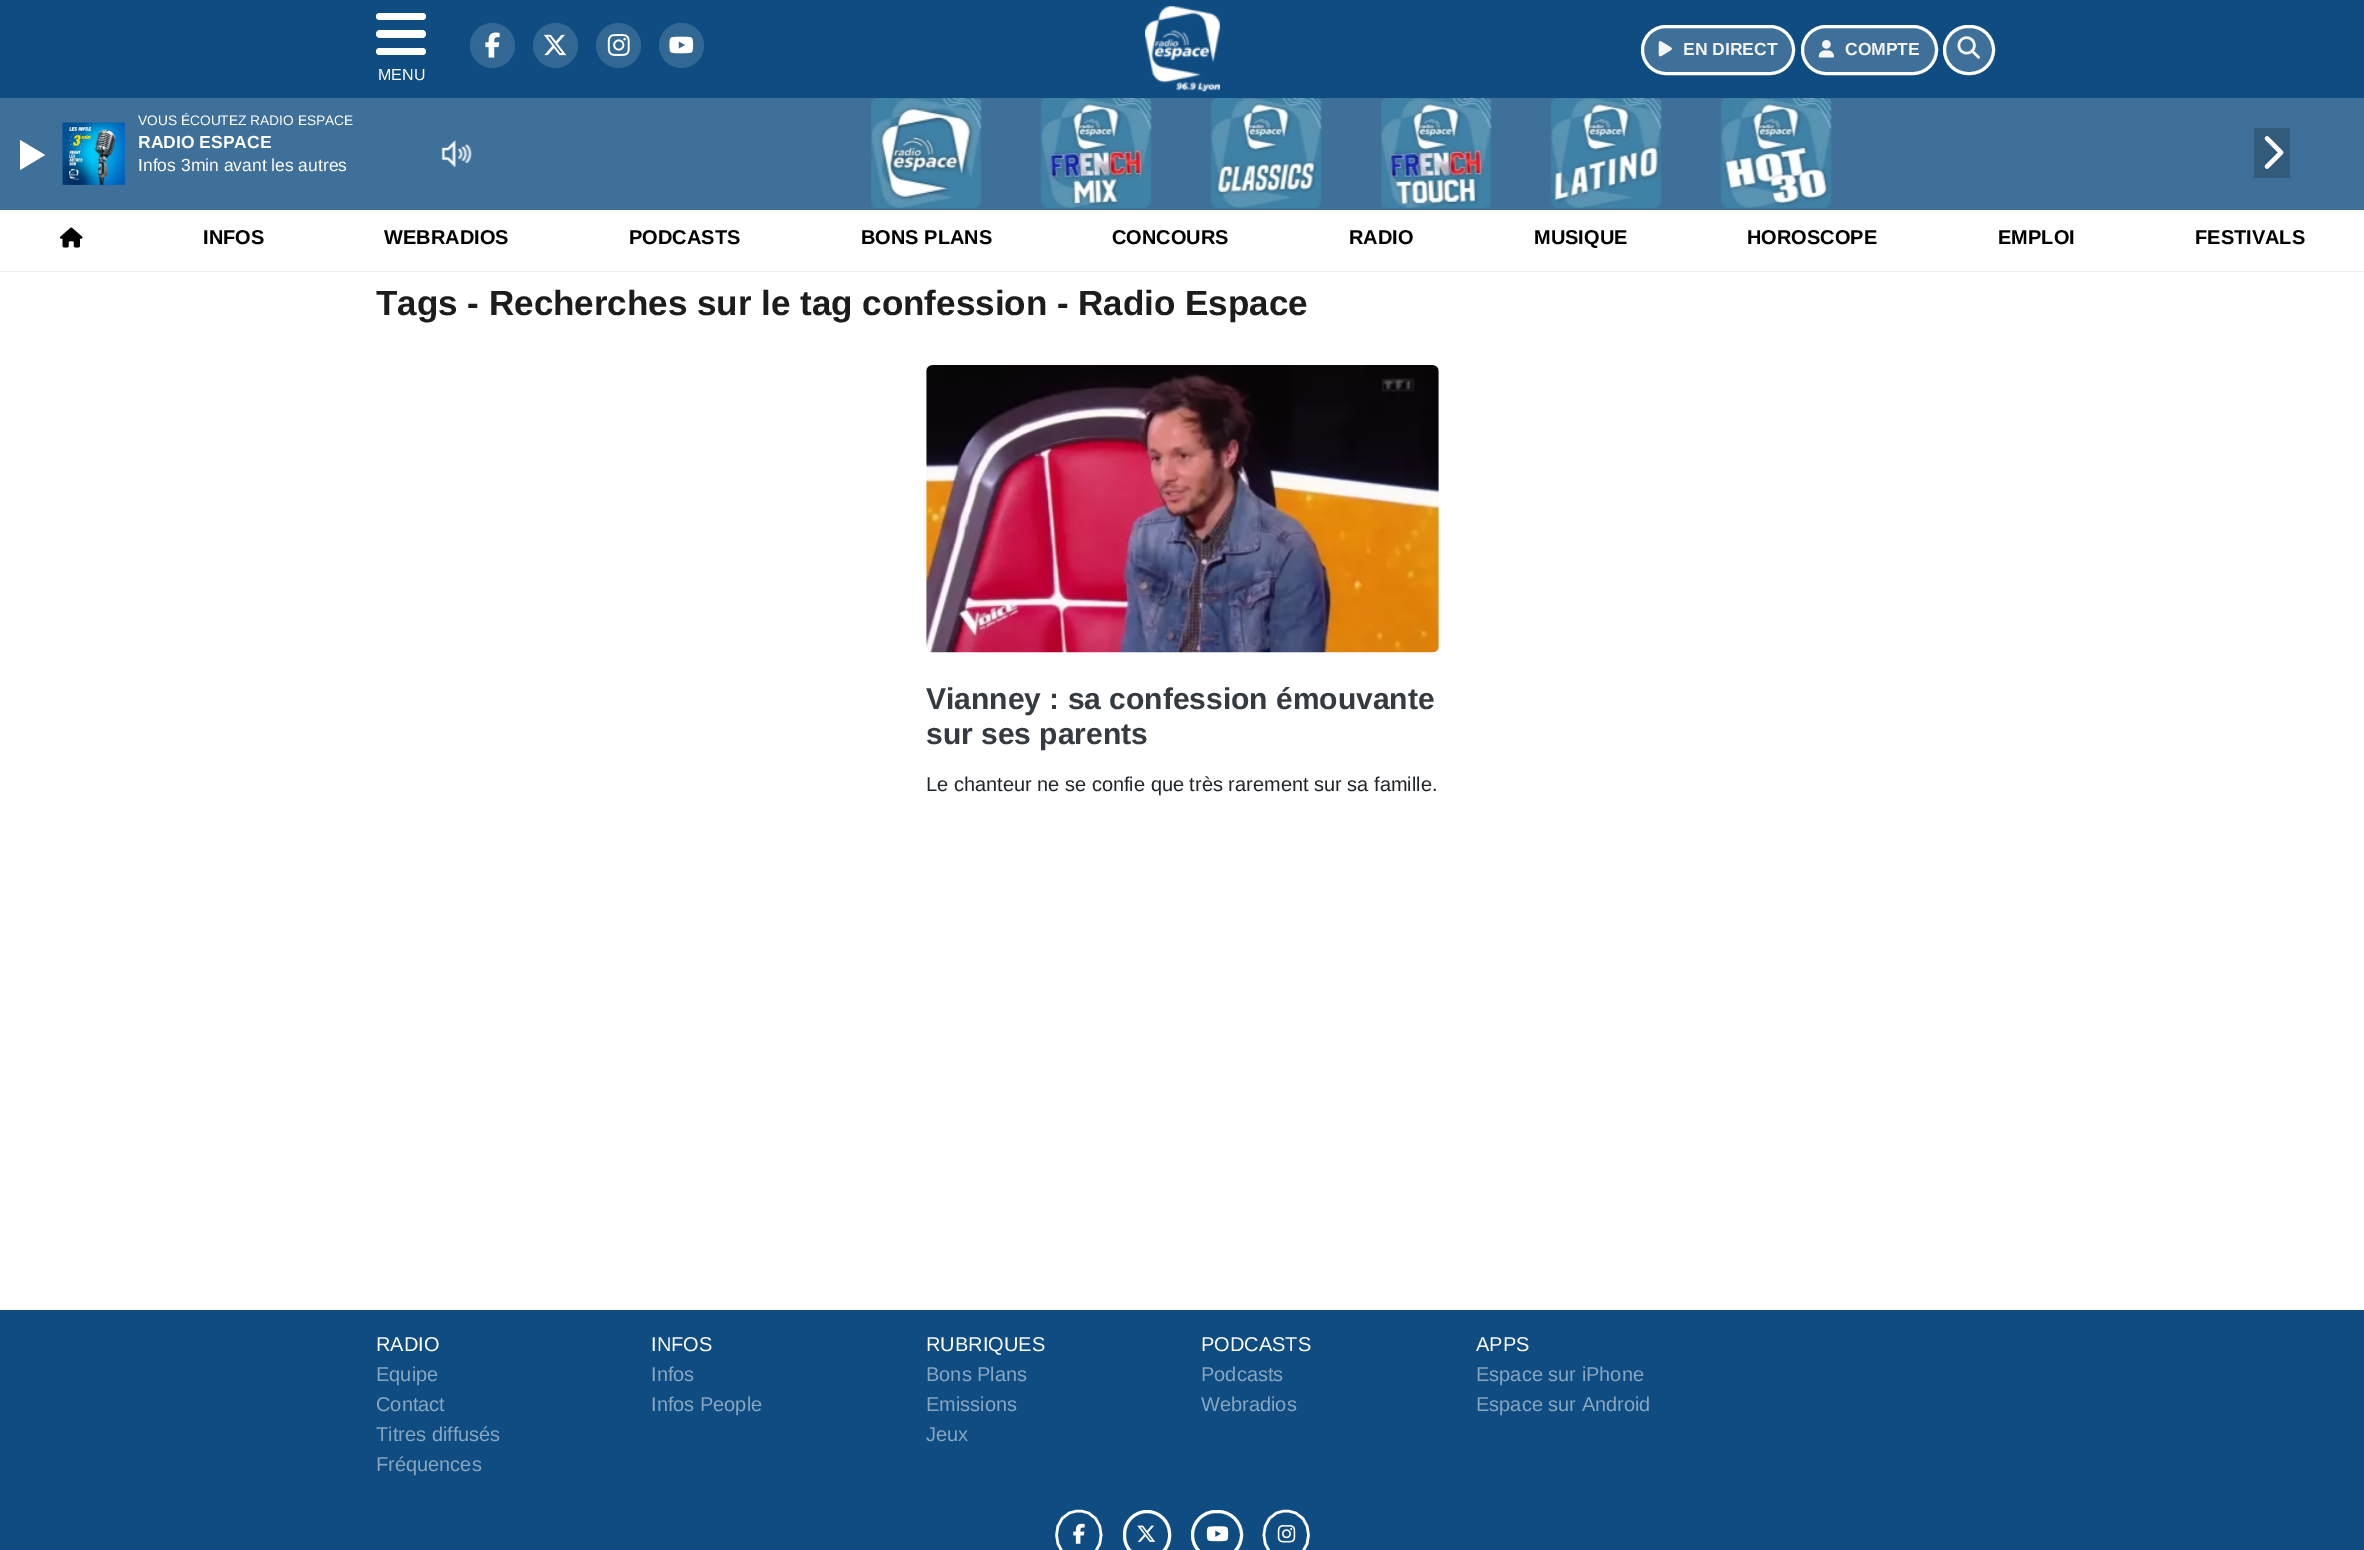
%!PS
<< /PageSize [2364 1550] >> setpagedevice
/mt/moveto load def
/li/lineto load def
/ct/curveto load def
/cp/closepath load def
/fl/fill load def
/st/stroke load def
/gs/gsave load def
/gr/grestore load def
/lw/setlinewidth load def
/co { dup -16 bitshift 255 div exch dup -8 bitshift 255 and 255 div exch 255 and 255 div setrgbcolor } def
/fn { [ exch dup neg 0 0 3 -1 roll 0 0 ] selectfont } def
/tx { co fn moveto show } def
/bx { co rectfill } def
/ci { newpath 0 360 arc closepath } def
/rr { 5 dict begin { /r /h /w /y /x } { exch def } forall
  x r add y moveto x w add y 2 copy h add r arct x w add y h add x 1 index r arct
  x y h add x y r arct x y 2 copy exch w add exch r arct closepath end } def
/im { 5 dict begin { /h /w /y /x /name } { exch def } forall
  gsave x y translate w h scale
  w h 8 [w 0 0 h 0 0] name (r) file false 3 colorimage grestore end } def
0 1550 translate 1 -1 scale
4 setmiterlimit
0 0 2364 1550 16#FFFFFF bx
0 0 2364 98 16#0F4C81 bx
16#336794 co
492.5 45.5 22.5 ci fl
(media/1.raw) 485 32 15 26 im
555.5 45.5 22.5 ci fl
(media/2.raw) 544 34 23 22 im
618.5 45.5 22.5 ci fl
(media/3.raw) 607 34 23 22 im
681.5 45.5 22.5 ci fl
(media/4.raw) 669 36 25 18 im
(media/5.raw) 1145 6 75 86 im
16#3F709A co
1642.5 26.5 151 47 23.5 rr gs fl gr
16#FFFFFF co
3 lw
st
(media/6.raw) 1658 41 14 16 im
16#3F709A co
1802.5 26.5 134 47 23.5 rr gs fl gr
16#FFFFFF co
st
(media/7.raw) 1818 40 17 18 im
16#3F709A co
1944.5 26.5 49 47 23.5 rr gs fl gr
16#FFFFFF co
st
(media/8.raw) 1957 36 23 23 im
376 13 50 7 3.5 rr fl
376 30 50 8 4 rr fl
376 48 50 7 3.5 rr fl
0 271 2364 1 16#EEEEEE bx
(media/9.raw) 60 227 23 21 im
(media/10.raw) 926 365 513 288 im
0 1310 2364 240 16#0F4C81 bx
16#FFFFFF co
2.5 lw
1079 1511 mt 1108.5 1511 1108.5 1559 1079 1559 ct 1049 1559 1049 1511 1079 1511 ct cp st
(media/11.raw) 1073 1523 12 21 im
3 lw
1124.5 1511.5 45 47 22.5 rr st
(media/12.raw) 1137 1525 19 17 im
1192.5 1511.5 49 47 23.5 rr st
(media/13.raw) 1206 1526 23 16 im
2.5 lw
1286 1511 mt 1316 1511 1316 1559 1286 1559 ct 1256.5 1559 1256.5 1511 1286 1511 ct cp st
(media/14.raw) 1277 1525 19 18 im
0 98 2364 112 16#3F709A bx
(media/15.raw) 62 122 63 63 im
16#FFFFFF co
20 170 mt 20 140 li 45 155 li cp fl
(media/16.raw) 441 140 31 28 im
(media/17.raw) 871 98 111 110 im
(media/18.raw) 1040 98 112 110 im
(media/19.raw) 1210 98 112 110 im
(media/20.raw) 1381 98 111 110 im
(media/21.raw) 1550 98 112 110 im
(media/22.raw) 1720 98 112 110 im
2254 128 36 50 16#325A7B bx
(media/23.raw) 2264 136 20 33 im
(EN DIRECT) 1683 55 /LiberationSans-Bold 17.5 16#F5F5F5 tx
(COMPTE) 1845 55 /LiberationSans-Bold 17.5 16#F5F5F5 tx
(MENU) 378 80 /LiberationSans-Regular 16 16#FFFFFF tx
(INFOS) 203 244 /LiberationSans-Bold 20 16#000000 tx
(WEBRADIOS) 384 244 /LiberationSans-Bold 20 16#000000 tx
(PODCASTS) 629 244 /LiberationSans-Bold 20 16#000000 tx
(BONS PLANS) 861 244 /LiberationSans-Bold 20 16#000000 tx
(CONCOURS) 1112 244 /LiberationSans-Bold 20 16#000000 tx
(RADIO) 1349 244 /LiberationSans-Bold 20 16#000000 tx
(MUSIQUE) 1534 244 /LiberationSans-Bold 20 16#000000 tx
(HOROSCOPE) 1747 244 /LiberationSans-Bold 20 16#000000 tx
(EMPLOI) 1998 244 /LiberationSans-Bold 20 16#000000 tx
(FESTIVALS) 2195 244 /LiberationSans-Bold 20 16#000000 tx
(Tags - Recherches sur le tag confession - Radio Espace) 376 315 /LiberationSans-Bold 35 16#1C1C1C tx
(Vianney : sa confession émouvante) 926 709 /LiberationSans-Bold 30 16#343A40 tx
(sur ses parents) 926 744 /LiberationSans-Bold 30 16#343A40 tx
(Le chanteur ne se confie que très rarement sur sa famille.) 926 791 /LiberationSans-Regular 20 16#212529 tx
(RADIO) 376 1351 /LiberationSans-Regular 20 16#FFFFFF tx
(Equipe) 376 1381 /LiberationSans-Regular 20 16#87A6C0 tx
(Contact) 376 1411 /LiberationSans-Regular 20 16#87A6C0 tx
(Titres diffusés) 376 1441 /LiberationSans-Regular 20 16#87A6C0 tx
(Fréquences) 376 1471 /LiberationSans-Regular 20 16#87A6C0 tx
(INFOS) 651 1351 /LiberationSans-Regular 20 16#FFFFFF tx
(Infos) 651 1381 /LiberationSans-Regular 20 16#87A6C0 tx
(Infos People) 651 1411 /LiberationSans-Regular 20 16#87A6C0 tx
(RUBRIQUES) 926 1351 /LiberationSans-Regular 20 16#FFFFFF tx
(Bons Plans) 926 1381 /LiberationSans-Regular 20 16#87A6C0 tx
(Emissions) 926 1411 /LiberationSans-Regular 20 16#87A6C0 tx
(Jeux) 926 1441 /LiberationSans-Regular 20 16#87A6C0 tx
(PODCASTS) 1201 1351 /LiberationSans-Regular 20 16#FFFFFF tx
(Podcasts) 1201 1381 /LiberationSans-Regular 20 16#87A6C0 tx
(Webradios) 1201 1411 /LiberationSans-Regular 20 16#87A6C0 tx
(APPS) 1476 1351 /LiberationSans-Regular 20 16#FFFFFF tx
(Espace sur iPhone) 1476 1381 /LiberationSans-Regular 20 16#87A6C0 tx
(Espace sur Android) 1476 1411 /LiberationSans-Regular 20 16#87A6C0 tx
(VOUS ÉCOUTEZ RADIO ESPACE) 138 125 /LiberationSans-Regular 13.75 16#FFFFFF tx
(RADIO ESPACE) 138 148 /LiberationSans-Bold 17.5 16#FFFFFF tx
(Infos 3min avant les autres) 138 171 /LiberationSans-Regular 17.5 16#FFFFFF tx
showpage
